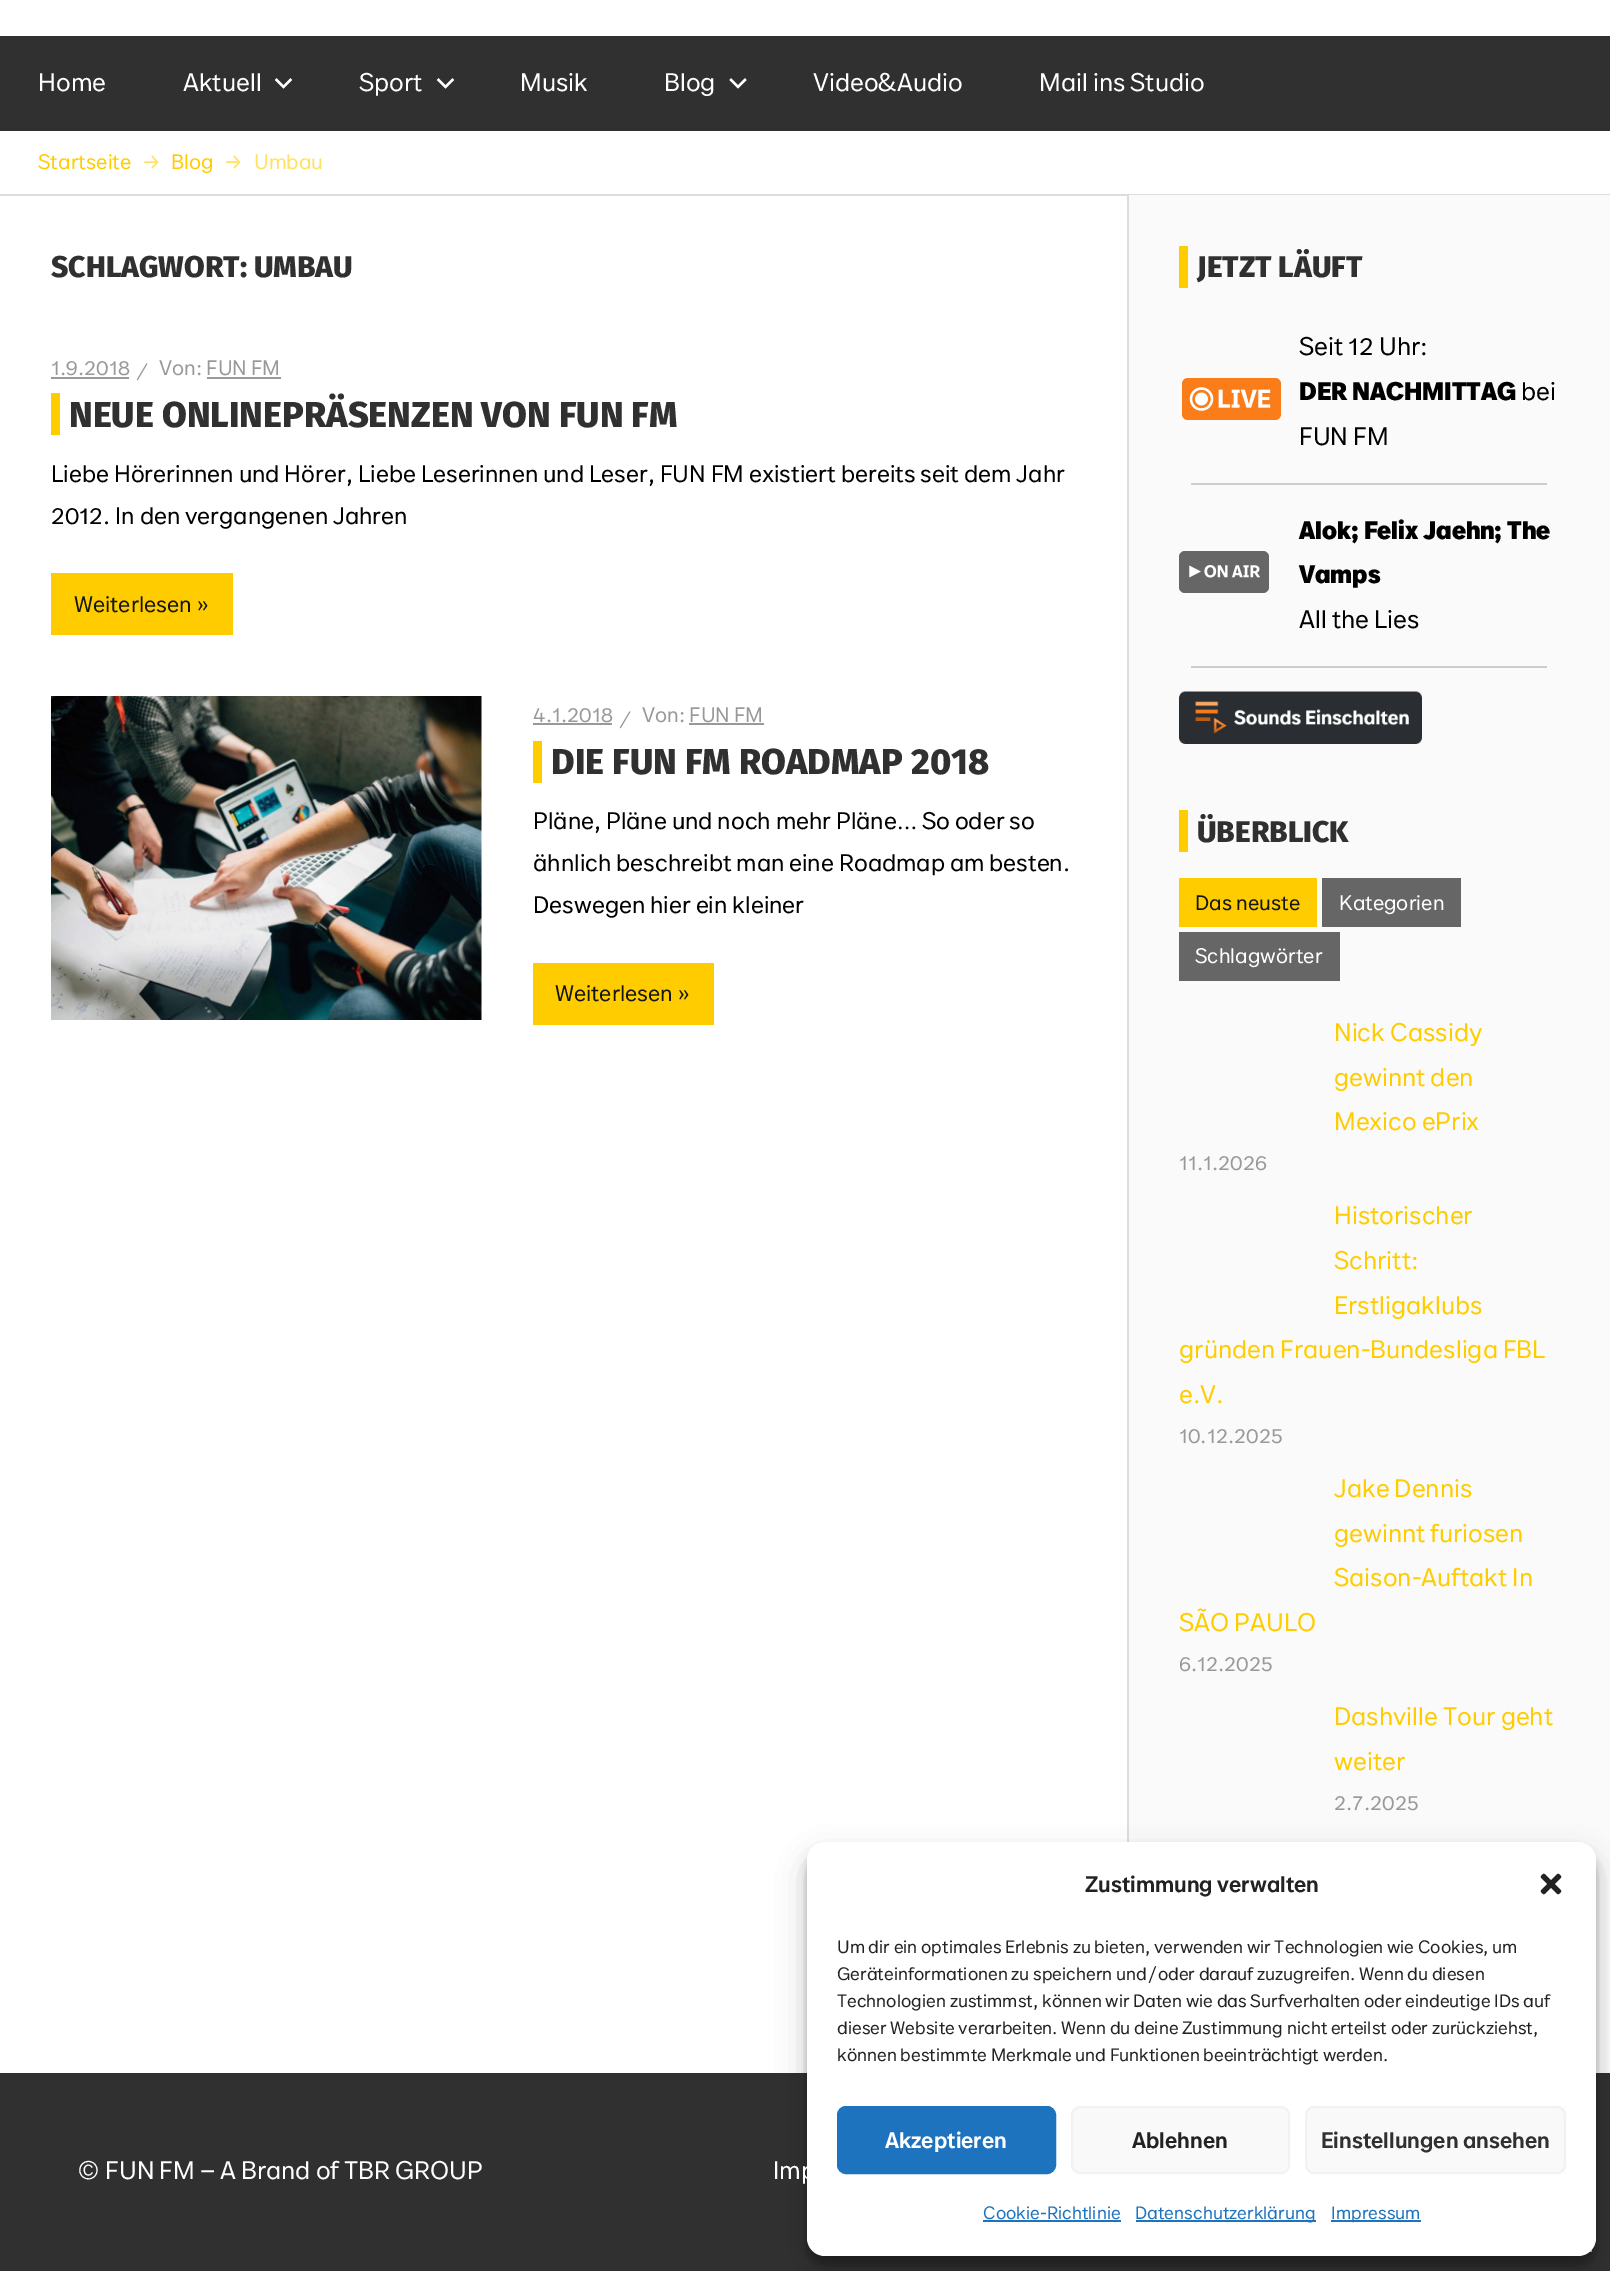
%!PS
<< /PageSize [1610 2271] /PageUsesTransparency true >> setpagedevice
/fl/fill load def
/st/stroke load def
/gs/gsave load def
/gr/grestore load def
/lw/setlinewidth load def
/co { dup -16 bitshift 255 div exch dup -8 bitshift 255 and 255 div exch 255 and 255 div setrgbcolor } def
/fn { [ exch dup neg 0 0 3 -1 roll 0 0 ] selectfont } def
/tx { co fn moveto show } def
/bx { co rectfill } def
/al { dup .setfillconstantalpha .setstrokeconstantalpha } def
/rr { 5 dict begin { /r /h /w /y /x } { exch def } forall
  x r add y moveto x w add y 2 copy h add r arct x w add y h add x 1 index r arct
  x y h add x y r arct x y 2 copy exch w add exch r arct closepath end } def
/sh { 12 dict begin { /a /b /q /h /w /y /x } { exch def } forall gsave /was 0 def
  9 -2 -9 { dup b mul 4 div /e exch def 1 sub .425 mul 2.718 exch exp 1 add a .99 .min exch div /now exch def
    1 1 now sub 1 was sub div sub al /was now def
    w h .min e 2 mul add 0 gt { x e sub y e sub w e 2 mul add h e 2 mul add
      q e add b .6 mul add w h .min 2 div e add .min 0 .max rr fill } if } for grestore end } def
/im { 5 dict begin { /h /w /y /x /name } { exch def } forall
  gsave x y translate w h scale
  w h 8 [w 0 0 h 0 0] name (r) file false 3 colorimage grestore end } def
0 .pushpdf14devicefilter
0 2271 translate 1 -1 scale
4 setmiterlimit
0 0 1610 2271 16#FFFFFF bx
0 36 1610 95 16#303030 bx
(media/1.raw) 274 78 19 11 im
(media/1.raw) 436 78 19 11 im
(media/2.raw) 729 78 18 11 im
0 194 1610 2 16#DDDDDD bx
51 377 78 2 16#999999 bx
207 377 74 2 16#999999 bx
51 393 9 42 16#FFCC00 bx
51 573 182 62 16#FFCC00 bx
(media/3.raw) 51 696 431 324 im
533 723 79 2 16#999999 bx
689 723 75 2 16#999999 bx
533 741 9 42 16#FFCC00 bx
533 963 181 62 16#FFCC00 bx
1129 195 481 1878 16#FAFAFA bx
1127 195 2 1647 16#DDDDDD bx
1179 246 9 42 16#FFCC00 bx
16#FA7D19 co
1182 378 99 42 6 rr fl
(media/4.raw) 1189 387 82 24 im
1191 483 356 2 16#CCCCCC bx
16#666666 co
1179 551 90 42 6 rr fl
(media/5.raw) 1189 565 72 13 im
1191 666 356 2 16#CCCCCC bx
(media/6.raw) 1179 691 243 53 im
1179 810 9 42 16#FFCC00 bx
1179 878 138 49 16#FFCC00 bx
1322 878 139 49 16#666666 bx
1179 932 161 49 16#666666 bx
0 2073 1610 198 16#303030 bx
1589 2249 3 3 16#FFCC00 bx
16#000000 co
807 1851 789 414 18 4.5 .23 sh
807 1857 789 414 18 15 .19 sh
16#FFFFFF co
807 1842 789 414 18 rr fl
(media/7.raw) 1540 1873 22 22 im
16#1E73BE co
838 2107 217 66 8 rr gs fl gr
2 lw
st
16#F9F9F9 co
1072 2107 217 66 8 rr gs fl gr
16#F2F2F2 co
st
16#F9F9F9 co
1306 2107 259 66 8 rr gs fl gr
16#F2F2F2 co
st
983 2220 138 2 16#1E73BE bx
1136 2220 180 2 16#1E73BE bx
1331 2220 90 2 16#1E73BE bx
(Home) 38 91 /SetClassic-Regular 25.5 16#FFFFFF tx
(Aktuell) 183 91 /SetClassic-Regular 25.5 16#FFFFFF tx
(Sport) 359 91 /SetClassic-Regular 25.5 16#FFFFFF tx
(Musik) 520 91 /SetClassic-Regular 25.5 16#FFFFFF tx
(Blog) 664 91 /SetClassic-Regular 25.5 16#FFFFFF tx
(Video&Audio) 813 91 /SetClassic-Regular 25.5 16#FFFFFF tx
(Mail ins Studio) 1039 91 /SetClassic-Regular 25.5 16#FFFFFF tx
(Startseite) 38 169 /SetClassic-Regular 21 16#FFCC00 tx
(→) 142 169 /SetClassic-Regular 21 16#FFE161 tx
(Blog) 171 169 /SetClassic-Regular 21 16#FFCC00 tx
(→) 224 169 /SetClassic-Regular 21 16#FFE161 tx
(Umbau) 254 169 /SetClassic-Regular 21 16#FFE161 tx
(SCHLAGWORT: UMBAU) 51 277 /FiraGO-ExtraBold 30 16#303030 tx
(1.9.2018) 51 375 /SetClassic-Regular 21 16#999999 tx
(⁄) 140 379 /SetClassic-Regular 21 16#999999 tx
(Von: FUN FM) 159 375 /SetClassic-Regular 21 16#999999 tx
(NEUE ONLINEPRÄSENZEN VON FUN FM) 69 427 /FiraGO-ExtraBold 36 16#303030 tx
(Liebe Hörerinnen und Hörer, Liebe Leserinnen und Leser, FUN FM existiert bereits seit dem Jahr) 51 482 /SetClassic-Regular 24 16#000000 tx
(2012. In den vergangenen Jahren) 51 524 /SetClassic-Regular 24 16#000000 tx
(Weiterlesen ») 74 612 /SetClassic-Regular 22.5 16#151515 tx
(4.1.2018) 533 722 /SetClassic-Regular 21 16#999999 tx
(⁄) 623 727 /SetClassic-Regular 21 16#999999 tx
(Von: FUN FM) 642 722 /SetClassic-Regular 21 16#999999 tx
(DIE FUN FM ROADMAP 2018) 551 774 /FiraGO-ExtraBold 36 16#303030 tx
(Pläne, Pläne und noch mehr Pläne… So oder so) 533 829 /SetClassic-Regular 24 16#000000 tx
(ähnlich beschreibt man eine Roadmap am besten.) 533 871 /SetClassic-Regular 24 16#000000 tx
(Deswegen hier ein kleiner) 533 913 /SetClassic-Regular 24 16#000000 tx
(Weiterlesen ») 555 1001 /SetClassic-Regular 22.5 16#151515 tx
(JETZT LÄUFT) 1197 277 /FiraGO-ExtraBold 30 16#303030 tx
(Seit 12 Uhr:) 1299 355 /SetClassic-Regular 25.5 16#000000 tx
(DER NACHMITTAG) 1299 400 /SetClassic-ExtraBold 25.5 16#000000 tx
(bei) 1521 400 /SetClassic-Regular 25.5 16#000000 tx
(FUN FM) 1299 445 /SetClassic-Regular 25.5 16#000000 tx
(Alok; Felix Jaehn; The) 1299 539 /SetClassic-ExtraBold 25.5 16#000000 tx
(Vamps) 1299 583 /SetClassic-ExtraBold 25.5 16#000000 tx
(All the Lies) 1299 628 /SetClassic-Regular 25.5 16#000000 tx
(ÜBERBLICK) 1197 842 /FiraGO-ExtraBold 30 16#303030 tx
(Das neuste) 1195 910 /SetClassic-Regular 21 16#151515 tx
(Kategorien) 1339 910 /SetClassic-Regular 21 16#FFFFFF tx
(Schlagwörter) 1195 963 /SetClassic-Regular 21 16#FFFFFF tx
(Nick Cassidy) 1334 1041 /SetClassic-Regular 25.5 16#FFCC00 tx
(gewinnt den) 1334 1086 /SetClassic-Regular 25.5 16#FFCC00 tx
(Mexico ePrix) 1334 1130 /SetClassic-Regular 25.5 16#FFCC00 tx
(11.1.2026) 1179 1170 /SetClassic-Regular 21 16#999999 tx
(Historischer) 1334 1224 /SetClassic-Regular 25.5 16#FFCC00 tx
(Schritt:) 1334 1269 /SetClassic-Regular 25.5 16#FFCC00 tx
(Erstligaklubs) 1334 1314 /SetClassic-Regular 25.5 16#FFCC00 tx
(gründen Frauen-Bundesliga FBL) 1179 1358 /SetClassic-Regular 25.5 16#FFCC00 tx
(e.V.) 1179 1403 /SetClassic-Regular 25.5 16#FFCC00 tx
(10.12.2025) 1179 1443 /SetClassic-Regular 21 16#999999 tx
(Jake Dennis) 1334 1497 /SetClassic-Regular 25.5 16#FFCC00 tx
(gewinnt furiosen) 1334 1542 /SetClassic-Regular 25.5 16#FFCC00 tx
(Saison-Auftakt In) 1334 1586 /SetClassic-Regular 25.5 16#FFCC00 tx
(SÃO PAULO) 1179 1631 /SetClassic-Regular 25.5 16#FFCC00 tx
(6.12.2025) 1179 1671 /SetClassic-Regular 21 16#999999 tx
(Dashville Tour geht) 1334 1725 /SetClassic-Regular 25.5 16#FFCC00 tx
(weiter) 1334 1770 /SetClassic-Regular 25.5 16#FFCC00 tx
(2.7.2025) 1334 1810 /SetClassic-Regular 21 16#999999 tx
(© FUN FM – A Brand of TBR GROUP) 77 2179 /SetClassic-Regular 25.5 16#FFFFFF tx
(Imp) 773 2179 /SetClassic-Regular 25.5 16#FFFFFF tx
(Zustimmung verwalten) 1085 1892 /SetClassic-Medium 22.5 16#222222 tx
(Um dir ein optimales Erlebnis zu bieten, verwenden wir Technologien wie Cookies, um) 837 1953 /SetClassic-Regular 18 16#222222 tx
(Geräteinformationen zu speichern und/oder darauf zuzugreifen. Wenn du diesen) 837 1980 /SetClassic-Regular 18 16#222222 tx
(Technologien zustimmst, können wir Daten wie das Surfverhalten oder eindeutige IDs auf) 837 2007 /SetClassic-Regular 18 16#222222 tx
(dieser Website verarbeiten. Wenn du deine Zustimmung nicht erteilst oder zurückziehst,) 837 2034 /SetClassic-Regular 18 16#222222 tx
(können bestimmte Merkmale und Funktionen beeinträchtigt werden.) 837 2061 /SetClassic-Regular 18 16#222222 tx
(Akzeptieren) 885 2148 /SetClassic-Medium 22.5 16#FFFFFF tx
(Ablehnen) 1132 2148 /SetClassic-Medium 22.5 16#222222 tx
(Einstellungen ansehen) 1321 2148 /SetClassic-Medium 22.5 16#303030 tx
(Cookie-Richtlinie) 983 2219 /SetClassic-Regular 18 16#1E73BE tx
(Datenschutzerklärung) 1135 2219 /SetClassic-Regular 18 16#1E73BE tx
(Impressum) 1331 2219 /SetClassic-Regular 18 16#1E73BE tx
.poppdf14devicefilter showpage
